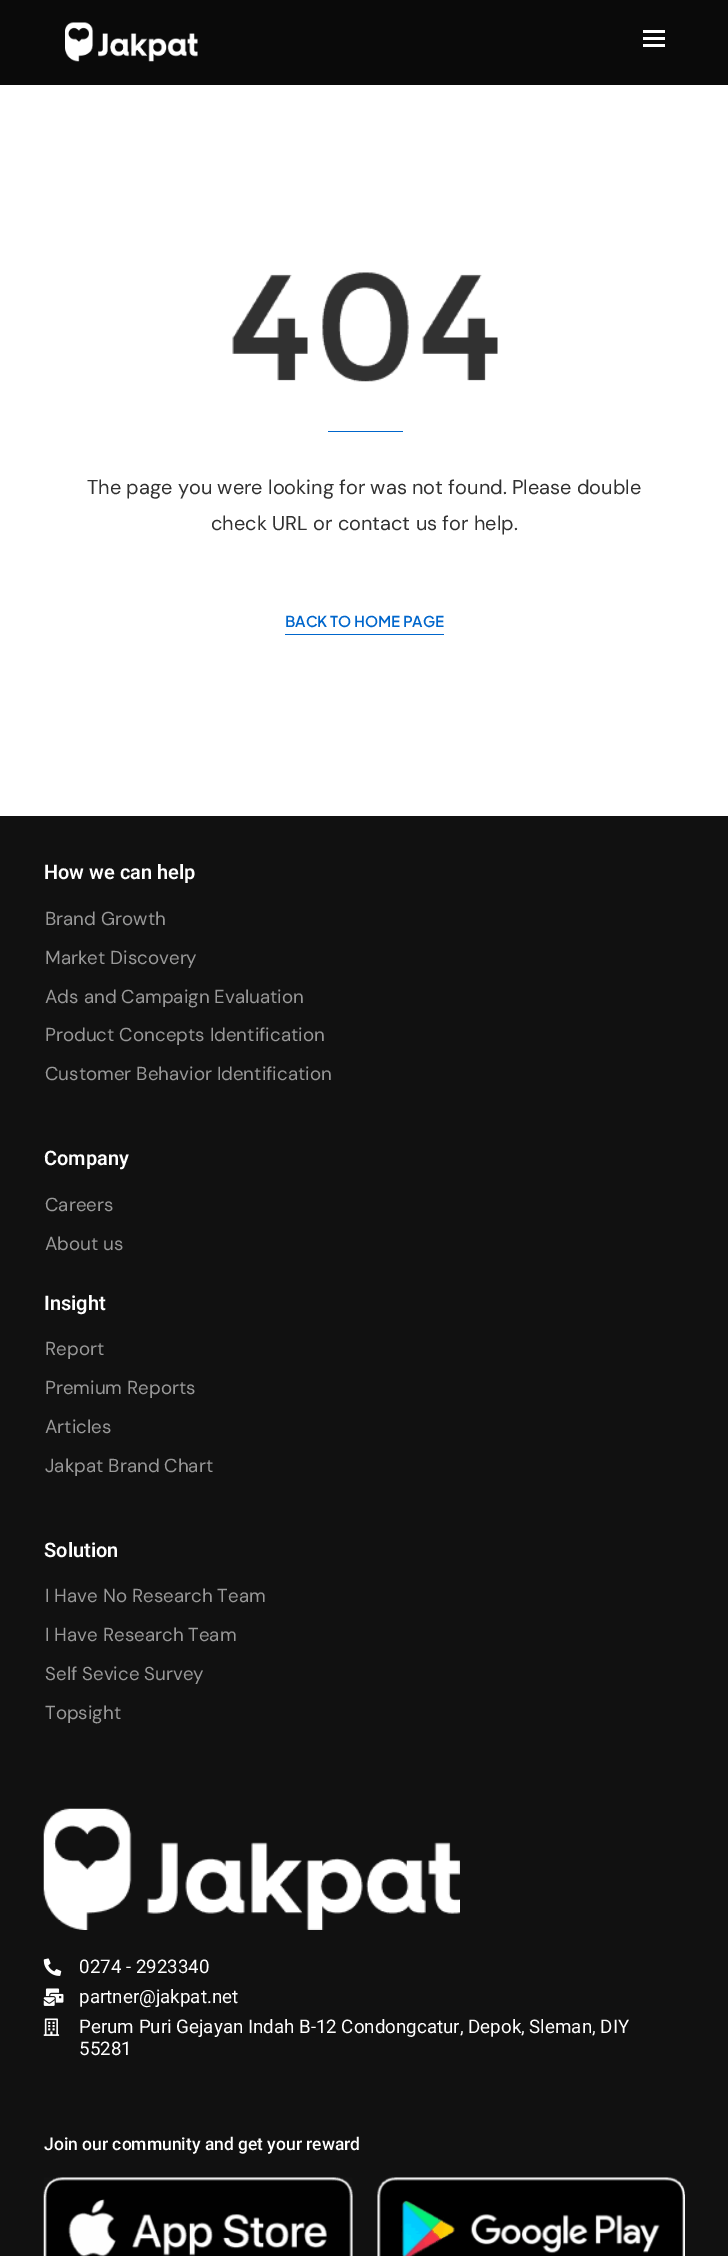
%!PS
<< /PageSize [728 2256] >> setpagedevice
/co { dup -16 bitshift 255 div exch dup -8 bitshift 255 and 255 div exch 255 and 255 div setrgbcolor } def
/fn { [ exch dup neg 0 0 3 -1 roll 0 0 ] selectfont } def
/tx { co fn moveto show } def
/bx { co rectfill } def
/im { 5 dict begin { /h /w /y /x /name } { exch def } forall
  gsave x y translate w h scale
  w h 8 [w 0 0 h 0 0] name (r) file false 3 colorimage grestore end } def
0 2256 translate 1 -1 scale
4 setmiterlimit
0 0 728 2256 16#FFFFFF bx
0 0 728 85 16#0A0A0A bx
(media/1.raw) 65 22 133 40 im
643 30 22 3 16#FFFFFF bx
643 37 22 3 16#FFFFFF bx
643 44 22 3 16#FFFFFF bx
(media/2.raw) 232 272 266 110 im
328 431 75 1 16#0066CC bx
285 634 159 1 16#0066CC bx
0 816 728 1440 16#111111 bx
(media/3.raw) 43 1808 417 122 im
(media/4.raw) 43 1958 19 18 im
(media/5.raw) 43 1988 21 18 im
(media/6.raw) 43 2018 17 18 im
(media/7.raw) 43 2177 310 79 im
(media/8.raw) 377 2177 308 79 im
(The page you were looking for was not found. Please double) 87 494 /DMSans-Regular 20 16#313131 tx
(check URL or contact us for help.) 211 530 /DMSans-Regular 20 16#313131 tx
(BACK TO HOME PAGE) 285 627 /PlusJakartaSans-SemiBold 15 16#0066CC tx
(How we can help) 44 879 /Roboto-SemiBold 20 16#FFFFFF tx
(Brand Growth) 45 925 /DMSans-Regular 18.75 16#999999 tx
(Market Discovery) 45 964 /DMSans-Regular 18.75 16#999999 tx
(Ads and Campaign Evaluation) 45 1003 /DMSans-Regular 18.75 16#999999 tx
(Product Concepts Identification) 45 1041 /DMSans-Regular 18.75 16#999999 tx
(Customer Behavior Identification) 45 1080 /DMSans-Regular 18.75 16#999999 tx
(Company) 44 1165 /Roboto-SemiBold 20 16#FFFFFF tx
(Careers) 45 1211 /DMSans-Regular 18.75 16#999999 tx
(About us) 45 1250 /DMSans-Regular 18.75 16#999999 tx
(Insight) 44 1310 /Roboto-SemiBold 20 16#FFFFFF tx
(Report) 45 1355 /DMSans-Regular 18.75 16#999999 tx
(Premium Reports) 45 1394 /DMSans-Regular 18.75 16#999999 tx
(Articles) 45 1433 /DMSans-Regular 18.75 16#999999 tx
(Jakpat Brand Chart) 45 1472 /DMSans-Regular 18.75 16#999999 tx
(Solution) 44 1557 /Roboto-SemiBold 20 16#FFFFFF tx
(I Have No Research Team) 45 1602 /DMSans-Regular 18.75 16#999999 tx
(I Have Research Team) 45 1641 /DMSans-Regular 18.75 16#999999 tx
(Self Sevice Survey) 45 1680 /DMSans-Regular 18.75 16#999999 tx
(Topsight) 45 1719 /DMSans-Regular 18.75 16#999999 tx
(0274 - 2923340) 79 1973 /Roboto-Regular 18.75 16#FFFFFF tx
(partner@jakpat.net) 79 2003 /Roboto-Regular 18.75 16#FFFFFF tx
(Perum Puri Gejayan Indah B-12 Condongcatur, Depok, Sleman, DIY) 79 2033 /Roboto-Regular 18.75 16#FFFFFF tx
(55281) 79 2055 /Roboto-Regular 18.75 16#FFFFFF tx
(Join our community and get your reward) 44 2150 /Roboto-Medium 17.5 16#FFFFFF tx
showpage
